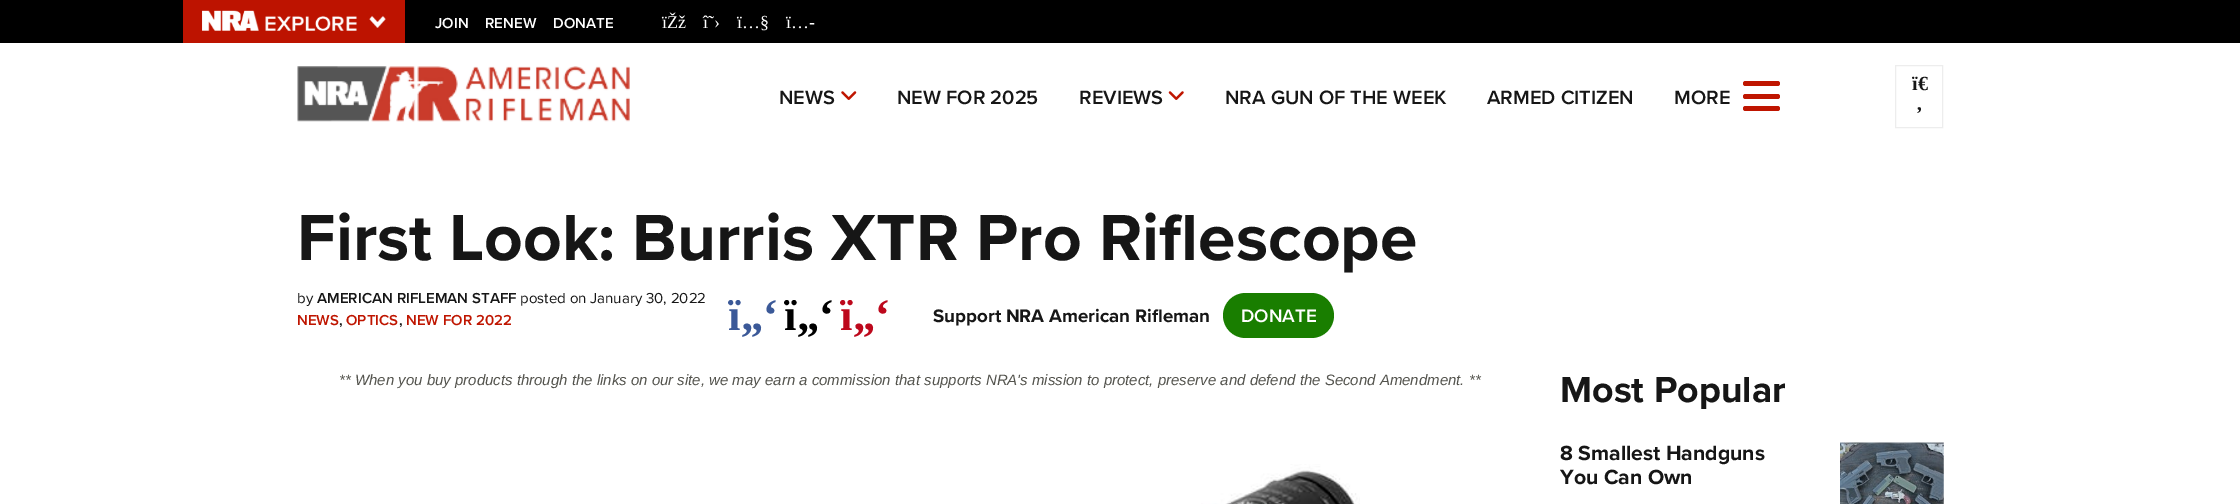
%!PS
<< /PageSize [2240 504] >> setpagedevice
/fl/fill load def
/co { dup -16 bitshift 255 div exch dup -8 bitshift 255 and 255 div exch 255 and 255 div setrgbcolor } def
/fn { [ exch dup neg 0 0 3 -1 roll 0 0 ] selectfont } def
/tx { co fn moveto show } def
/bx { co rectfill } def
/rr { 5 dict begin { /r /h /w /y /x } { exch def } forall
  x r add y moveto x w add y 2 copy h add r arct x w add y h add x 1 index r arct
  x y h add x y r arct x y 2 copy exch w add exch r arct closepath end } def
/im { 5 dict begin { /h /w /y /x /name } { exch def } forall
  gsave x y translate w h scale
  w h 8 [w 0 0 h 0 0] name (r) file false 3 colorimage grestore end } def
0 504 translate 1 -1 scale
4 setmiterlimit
0 0 2240 504 16#FFFFFF bx
0 0 2240 43 16#000000 bx
183 0 222 43 16#BD1300 bx
(media/1.raw) 202 10 184 22 im
(media/2.raw) 297 66 333 56 im
(media/3.raw) 841 91 16 9 im
(media/4.raw) 1168 91 16 9 im
16#BF1500 co
1743 94 37 5 2.5 rr fl
1743 81 37 5 2.5 rr fl
1743 106 37 5 2.5 rr fl
16#EDEDED co
1895.5 65.5 47 62 rectstroke
16#197E00 co
1223 293 111 45 22.5 rr fl
(media/5.raw) 1201 464 159 40 im
(media/6.raw) 1840 442 104 62 im
(JOIN) 435 28 /ProximaNova-SemiBold 15 16#FFFFFF tx
(RENEW) 485 28 /ProximaNova-SemiBold 15 16#FFFFFF tx
(DONATE) 553 28 /ProximaNova-SemiBold 15 16#FFFFFF tx
(ïŽž) 662 28 /LiberationSerif-Regular 18 16#FFFFFF tx
(î˜›) 703 28 /LiberationSerif-Regular 18 16#FFFFFF tx
(ï…§) 737 28 /LiberationSerif-Regular 18 16#FFFFFF tx
(ï…-) 786 28 /LiberationSerif-Regular 18 16#FFFFFF tx
(NEWS) 779 104 /ProximaNova-SemiBold 20 16#161616 tx
(NEW FOR 2025) 897 104 /ProximaNova-SemiBold 20 16#161616 tx
(REVIEWS) 1079 104 /ProximaNova-SemiBold 20 16#161616 tx
(NRA GUN OF THE WEEK) 1225 104 /ProximaNova-SemiBold 20 16#161616 tx
(ARMED CITIZEN) 1487 104 /ProximaNova-SemiBold 20 16#161616 tx
(MORE) 1674 104 /ProximaNova-SemiBold 20 16#161616 tx
(ï€) 1912 90 /LiberationSerif-Bold 20 16#161616 tx
(‚) 1916 110 /LiberationSerif-Bold 20 16#161616 tx
(First Look: Burris XTR Pro Riflescope) 297 260 /ProximaNova-Bold 67.5 16#161616 tx
(by) 297 303 /ProximaNova-Regular 15 16#161616 tx
(AMERICAN RIFLEMAN STAFF) 317 303 /ProximaNova-SemiBold 15 16#161616 tx
(posted on January 30, 2022) 520 303 /ProximaNova-Regular 15 16#161616 tx
(NEWS) 297 325 /ProximaNova-SemiBold 15 16#BF1500 tx
(,) 339 325 /ProximaNova-SemiBold 15 16#161616 tx
(OPTICS) 346 325 /ProximaNova-SemiBold 15 16#BF1500 tx
(,) 399 325 /ProximaNova-SemiBold 15 16#161616 tx
(NEW FOR 2022) 406 325 /ProximaNova-SemiBold 15 16#BF1500 tx
(ï„‘) 728 330 /LiberationSerif-Bold 45 16#3B5998 tx
(ï„‘) 784 330 /LiberationSerif-Bold 45 16#000000 tx
(ï„‘) 840 330 /LiberationSerif-Bold 45 16#BD081C tx
(Support NRA American Rifleman) 933 322 /ProximaNova-Bold 18.75 16#161616 tx
(DONATE) 1241 322 /ProximaNova-SemiBold 18.75 16#FFFFFF tx
(** When you buy products through the links on our site, we may earn a commission that supports NRA's mission to protect, preserve and defend the Second Amendment. **) 339 385 /LiberationSans-Italic 15 16#54544E tx
(Most Popular) 1560 402 /ProximaNova-Bold 37.5 16#161616 tx
(8 Smallest Handguns) 1560 460 /ProximaNova-Bold 21.25 16#161616 tx
(You Can Own) 1560 484 /ProximaNova-Bold 21.25 16#161616 tx
showpage
